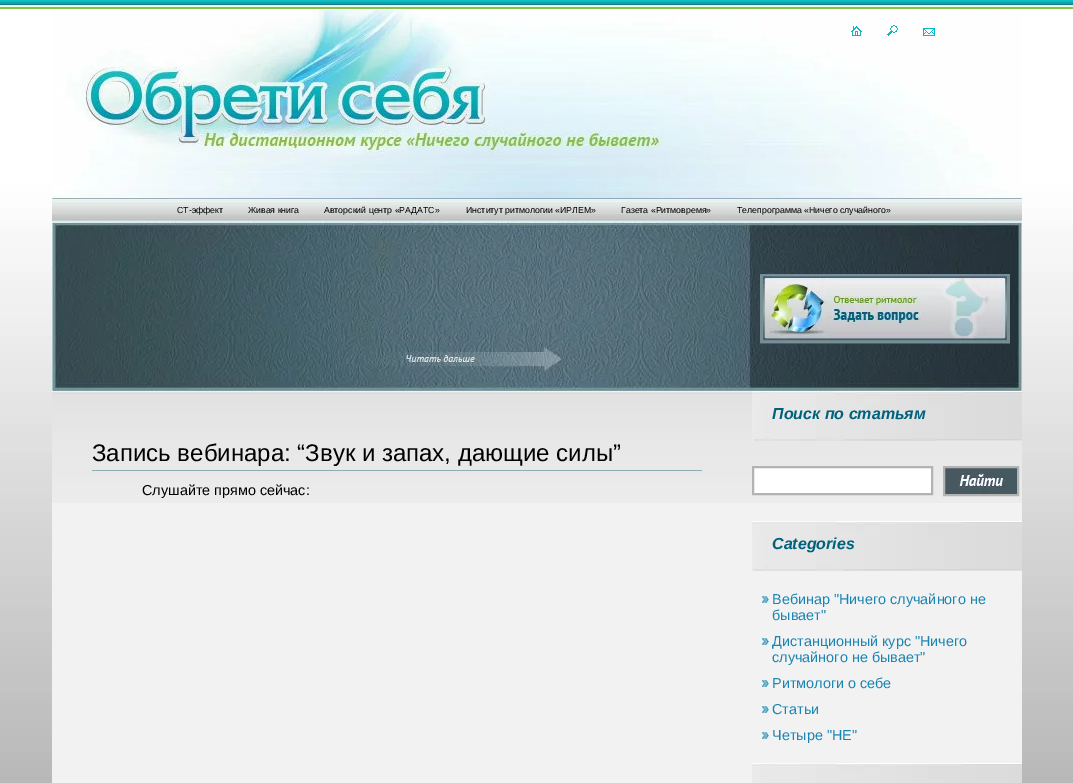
%!PS
<< /PageSize [1073 783] >> setpagedevice
/mt/moveto load def
/li/lineto load def
/cp/closepath load def
/fl/fill load def
/st/stroke load def
/gs/gsave load def
/gr/grestore load def
/lw/setlinewidth load def
/co { dup -16 bitshift 255 div exch dup -8 bitshift 255 and 255 div exch 255 and 255 div setrgbcolor } def
/fn { [ exch dup neg 0 0 3 -1 roll 0 0 ] selectfont } def
/tx { co fn moveto show } def
/bx { co rectfill } def
/im { 5 dict begin { /h /w /y /x /name } { exch def } forall
  gsave x y translate w h scale
  w h 8 [w 0 0 h 0 0] name (r) file false 3 colorimage grestore end } def
0 783 translate 1 -1 scale
4 setmiterlimit
0 0 1073 783 16#FFFFFF bx
(media/1.raw) 0 9 1073 774 im
(media/2.raw) 0 0 1073 9 im
(media/3.raw) 52 10 970 189 im
(media/4.raw) 851 26 11 10 im
(media/5.raw) 887 25 11 11 im
(media/6.raw) 923 28 12 8 im
(media/7.raw) 52 222 970 169 im
(media/8.raw) 52 199 970 23 im
(media/9.raw) 760 274 250 70 im
52 391 970 392 16#F2F2F2 bx
(media/10.raw) 52 392 970 111 im
92 470 610 1 16#8EACB6 bx
(media/11.raw) 752 391 270 50 im
16#FFFFFF co
753 467 mt 932 467 li 932 494 li 753 494 li cp gs fl gr
16#B3B3B3 co
2 lw
st
(media/12.raw) 945 468 72 26 im
944 467 74 28 rectstroke
(media/11.raw) 752 521 270 50 im
(media/13.raw) 762 596 7 7 im
(media/13.raw) 762 638 7 7 im
(media/13.raw) 762 680 7 7 im
(media/13.raw) 762 706 7 7 im
(media/13.raw) 762 732 7 7 im
(media/14.raw) 752 763 270 20 im
(СТ-эффект) 177 213 /LiberationSans-Regular 8.75 16#000000 tx
(Живая книга) 248 213 /LiberationSans-Regular 8.75 16#000000 tx
(Авторский центр «РАДАТС») 324 213 /LiberationSans-Regular 8.75 16#000000 tx
(Институт ритмологии «ИРЛЕМ») 466 213 /LiberationSans-Regular 8.75 16#000000 tx
(Газета «Ритмовремя») 621 213 /LiberationSans-Regular 8.75 16#000000 tx
(Телепрограмма «Ничего случайного») 737 213 /LiberationSans-Regular 8.75 16#000000 tx
(Запись вебинара: “Звук и запах, дающие силы”) 92 461 /LiberationSans-Regular 24 16#000000 tx
(Слушайте прямо сейчас:) 142 495 /LiberationSans-Regular 14.4 16#000000 tx
(Поиск по статьям) 772 419 /LiberationSans-BoldItalic 16 16#00617D tx
(Categories) 772 549 /LiberationSans-BoldItalic 16 16#00617D tx
(Вебинар "Ничего случайного не) 772 604 /LiberationSans-Regular 14.4 16#1A85B3 tx
(бывает") 772 620 /LiberationSans-Regular 14.4 16#1A85B3 tx
(Дистанционный курс "Ничего) 772 646 /LiberationSans-Regular 14.4 16#1A85B3 tx
(случайного не бывает") 772 662 /LiberationSans-Regular 14.4 16#1A85B3 tx
(Ритмологи о себе) 772 688 /LiberationSans-Regular 14.4 16#1A85B3 tx
(Статьи) 772 714 /LiberationSans-Regular 14.4 16#1A85B3 tx
(Четыре "НЕ") 772 740 /LiberationSans-Regular 14.4 16#1A85B3 tx
showpage
